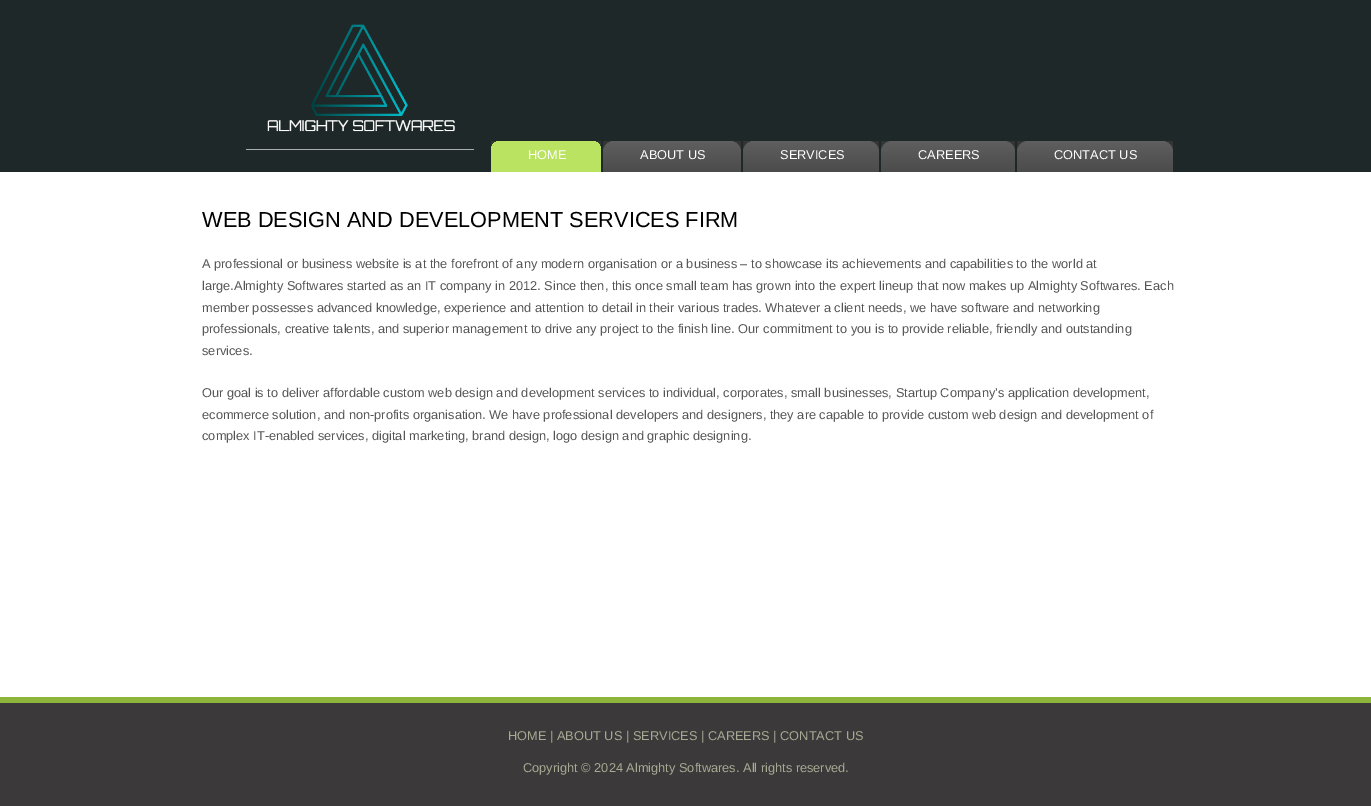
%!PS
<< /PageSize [1371 806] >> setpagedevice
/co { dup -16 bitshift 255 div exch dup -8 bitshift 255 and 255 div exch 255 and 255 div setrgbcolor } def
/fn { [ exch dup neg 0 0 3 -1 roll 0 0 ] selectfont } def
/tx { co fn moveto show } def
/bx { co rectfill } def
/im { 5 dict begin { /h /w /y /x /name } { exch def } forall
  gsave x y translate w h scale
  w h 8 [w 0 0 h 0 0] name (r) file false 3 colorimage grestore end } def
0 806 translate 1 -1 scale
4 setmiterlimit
0 0 1371 806 16#FFFFFF bx
0 0 1371 172 16#1E2829 bx
(media/1.raw) 246 24 228 126 im
(media/2.raw) 491 141 9 31 im
(media/3.raw) 500 141 101 31 im
(media/4.raw) 603 141 9 31 im
(media/5.raw) 612 141 129 31 im
(media/6.raw) 743 141 9 31 im
(media/7.raw) 752 141 127 31 im
(media/4.raw) 881 141 9 31 im
(media/8.raw) 890 141 125 31 im
(media/4.raw) 1017 141 9 31 im
(media/9.raw) 1026 141 147 31 im
0 703 1371 103 16#3B3939 bx
0 697 1371 6 16#8DB53B bx
(HOME) 528 159 /LiberationSans-Regular 12.8 16#FFFFFF tx
(ABOUT US) 640 159 /LiberationSans-Regular 12.8 16#FFFFFF tx
(SERVICES) 780 159 /LiberationSans-Regular 12.8 16#FFFFFF tx
(CAREERS) 918 159 /LiberationSans-Regular 12.8 16#FFFFFF tx
(CONTACT US) 1054 159 /LiberationSans-Regular 12.8 16#FFFFFF tx
(WEB DESIGN AND DEVELOPMENT SERVICES FIRM) 202 227 /LiberationSans-Regular 21.75 16#000000 tx
(A professional or business website is at the forefront of any modern organisation or a business – to showcase its achievements and capabilities to the world at) 202 268 /LiberationSans-Regular 12.8 16#555555 tx
(large.Almighty Softwares started as an IT company in 2012. Since then, this once small team has grown into the expert lineup that now makes up Almighty Softwares. Each) 202 290 /LiberationSans-Regular 12.8 16#555555 tx
(member possesses advanced knowledge, experience and attention to detail in their various trades. Whatever a client needs, we have software and networking) 202 312 /LiberationSans-Regular 12.8 16#555555 tx
(professionals, creative talents, and superior management to drive any project to the finish line. Our commitment to you is to provide reliable, friendly and outstanding) 202 333 /LiberationSans-Regular 12.8 16#555555 tx
(services.) 202 355 /LiberationSans-Regular 12.8 16#555555 tx
(Our goal is to deliver affordable custom web design and development services to individual, corporates, small businesses, Startup Company’s application development,) 202 397 /LiberationSans-Regular 12.8 16#555555 tx
(ecommerce solution, and non-profits organisation. We have professional developers and designers, they are capable to provide custom web design and development of) 202 419 /LiberationSans-Regular 12.8 16#555555 tx
(complex IT-enabled services, digital marketing, brand design, logo design and graphic designing.) 202 440 /LiberationSans-Regular 12.8 16#555555 tx
(HOME | ABOUT US | SERVICES | CAREERS | CONTACT US) 508 740 /LiberationSans-Regular 12.8 16#A8AA94 tx
(Copyright © 2024 Almighty Softwares. All rights reserved.) 523 772 /LiberationSans-Regular 12.8 16#A8AA94 tx
showpage
